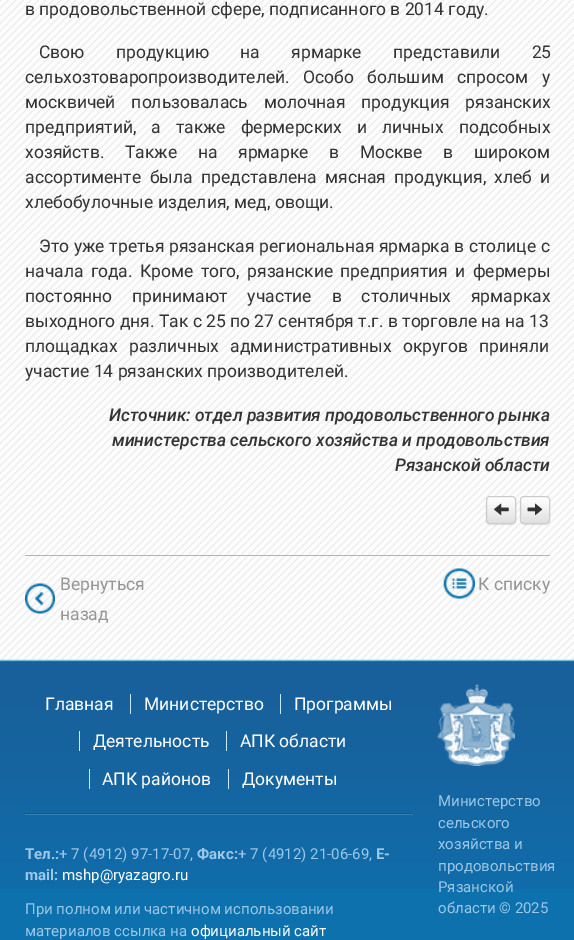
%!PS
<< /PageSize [574 940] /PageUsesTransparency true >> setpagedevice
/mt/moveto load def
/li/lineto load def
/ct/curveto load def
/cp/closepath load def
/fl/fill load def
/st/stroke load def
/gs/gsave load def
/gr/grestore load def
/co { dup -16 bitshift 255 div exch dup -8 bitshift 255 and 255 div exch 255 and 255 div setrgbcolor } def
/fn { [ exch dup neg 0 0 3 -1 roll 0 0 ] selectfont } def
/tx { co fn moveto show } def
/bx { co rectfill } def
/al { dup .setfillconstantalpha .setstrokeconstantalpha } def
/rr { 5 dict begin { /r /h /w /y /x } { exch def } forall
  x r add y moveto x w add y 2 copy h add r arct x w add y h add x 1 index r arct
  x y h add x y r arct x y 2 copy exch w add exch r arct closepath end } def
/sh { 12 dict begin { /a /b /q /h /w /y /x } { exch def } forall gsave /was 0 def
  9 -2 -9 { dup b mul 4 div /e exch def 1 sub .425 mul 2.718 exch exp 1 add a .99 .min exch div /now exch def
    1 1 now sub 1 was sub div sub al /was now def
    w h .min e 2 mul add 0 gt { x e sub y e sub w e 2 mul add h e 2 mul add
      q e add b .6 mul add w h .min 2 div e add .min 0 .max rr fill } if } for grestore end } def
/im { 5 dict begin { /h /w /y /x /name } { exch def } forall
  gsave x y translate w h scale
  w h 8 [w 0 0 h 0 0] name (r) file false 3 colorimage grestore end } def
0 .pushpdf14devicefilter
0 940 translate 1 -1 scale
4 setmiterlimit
0 0 574 940 16#FFFFFF bx
(media/1.raw) 0 0 574 660 im
16#000000 co
486 498 30 27 4 .5 .07 sh
16#FFFFFF co
486 496 30 28 4 rr fl
gs
486 496 30 28 4 rr clip newpath
gs 486 498 mt 516 498 li 516 523 li 486 523 li cp clip newpath
<< /ShadingType 2 /ColorSpace /DeviceRGB /Coords [501 498 501 523] /Extend [true true] /Function << /FunctionType 2 /Domain [0 1] /C0 [1 1 1] /C1 [.878 .878 .878] /N 1 >> >> shfill gr
gr
16#CCCCCC co
486.5 496.5 29 27 3.5 rr st
(media/2.raw) 494 503 15 13 im
16#000000 co
520 498 30 27 4 .5 .07 sh
16#FFFFFF co
520 496 30 28 4 rr fl
gs
520 496 30 28 4 rr clip newpath
gs 520 498 mt 550 498 li 550 523 li 520 523 li cp clip newpath
<< /ShadingType 2 /ColorSpace /DeviceRGB /Coords [535 498 535 523] /Extend [true true] /Function << /FunctionType 2 /Domain [0 1] /C0 [1 1 1] /C1 [.878 .878 .878] /N 1 >> >> shfill gr
gr
16#FEFEFE co
524 499 mt 529.5 499 544.5 497.5 548 500 ct 549 502.5 li 549 497.5 547.5 498 542.5 498 ct 527.5 498 li 522 498 521 497.5 521 503 ct 521 501 522 499 524 499 ct cp 521.5 522 mt 521 520.5 521 518.5 521 515 ct 521 517 520.5 520.5 521.5 522 ct cp eofill
16#CCCCCC co
520.5 496.5 29 27 3.5 rr st
(media/3.raw) 527 503 16 13 im
25 555 525 1 16#B3B3B3 bx
(media/4.raw) 25 583 30 31 im
(media/5.raw) 443 568 32 31 im
0 889 574 51 16#0D71AE bx
(media/6.raw) 0 659 574 230 im
25 814 388 1 16#357FB2 bx
25 813 388 1 16#10598C bx
130 694 1 20 16#CBE9FF bx
280 694 1 20 16#CBE9FF bx
79 731 1 20 16#CBE9FF bx
226 731 1 20 16#CBE9FF bx
89 769 1 20 16#CBE9FF bx
228 769 1 20 16#CBE9FF bx
(media/7.raw) 437 684 78 82 im
(в продовольственной сфере, подписанного в 2014 году.) 25 15 /Roboto-Regular 17.5 16#333333 tx
39 58 mt 27 0 32 (Свою продукцию на ярмарке представили 25) widthshow
25 83 mt 9 0 32 (сельхозтоваропроизводителей. Особо большим спросом у) widthshow
25 108 mt 11.5 0 32 (москвичей пользовалась молочная продукция рязанских) widthshow
25 133 mt 10.5 0 32 (предприятий, а также фермерских и личных подсобных) widthshow
25 158 mt 16.25 0 32 (хозяйств. Также на ярмарке в Москве в широком) widthshow
25 183 mt 4 0 32 (ассортименте была представлена мясная продукция, хлеб и) widthshow
(хлебобулочные изделия, мед, овощи.) 25 208 /Roboto-Regular 17.5 16#333333 tx
39 252 mt .25 0 32 (Это уже третья рязанская региональная ярмарка в столице с) widthshow
25 277 mt 3 0 32 (начала года. Кроме того, рязанские предприятия и фермеры) widthshow
25 302 mt 15.5 0 32 (постоянно принимают участие в столичных ярмарках) widthshow
(выходного дня. Так с 25 по 27 сентября т.г. в торговле на на 13) 25 327 /Roboto-Regular 17.5 16#333333 tx
25 352 mt 7 0 32 (площадках различных административных округов приняли) widthshow
(участие 14 рязанских производителей.) 25 377 /Roboto-Regular 17.5 16#333333 tx
(Источник: отдел развития продовольственного рынка) 109 421 /Roboto-MediumItalic 17.5 16#333333 tx
(министерства сельского хозяйства и продовольствия) 112 446 /Roboto-MediumItalic 17.5 16#333333 tx
(Рязанской области) 395 471 /Roboto-MediumItalic 17.5 16#333333 tx
(Вернуться) 60 590 /Roboto-Regular 17.5 16#959595 tx
(назад) 60 620 /Roboto-Regular 17.5 16#959595 tx
(К списку) 478 590 /Roboto-Regular 17.5 16#959595 tx
(Главная) 45 710 /Roboto-Regular 17.5 16#FFFFFF tx
(Министерство) 144 710 /Roboto-Regular 17.5 16#FFFFFF tx
(Программы) 294 710 /Roboto-Regular 17.5 16#FFFFFF tx
(Деятельность) 93 747 /Roboto-Regular 17.5 16#FFFFFF tx
(АПК области) 240 747 /Roboto-Regular 17.5 16#FFFFFF tx
(АПК районов) 102 785 /Roboto-Regular 17.5 16#FFFFFF tx
(Документы) 242 785 /Roboto-Regular 17.5 16#FFFFFF tx
(Тел.:) 25 859 /Roboto-Bold 15 16#9CC7E7 tx
(+ 7 \(4912\) 97-17-07,) 59 859 /Roboto-Regular 15 16#9CC7E7 tx
(Факс:) 197 859 /Roboto-Bold 15 16#9CC7E7 tx
(+ 7 \(4912\) 21-06-69,) 238 859 /Roboto-Regular 15 16#9CC7E7 tx
(E-) 376 859 /Roboto-Bold 15 16#9CC7E7 tx
(mail:) 25 880 /Roboto-Bold 15 16#9CC7E7 tx
(mshp@ryazagro.ru) 62 880 /Roboto-Regular 15 16#FFFFFF tx
(При полном или частичном использовании) 25 914 /Roboto-Regular 15 16#9CC7E7 tx
(материалов ссылка на) 25 936 /Roboto-Regular 15 16#9CC7E7 tx
(официальный сайт) 191 936 /Roboto-Regular 15 16#FFFFFF tx
(Министерство) 438 806 /Roboto-Regular 15 16#9CC7E7 tx
(сельского) 438 828 /Roboto-Regular 15 16#9CC7E7 tx
(хозяйства и) 438 849 /Roboto-Regular 15 16#9CC7E7 tx
(продовольствия) 438 871 /Roboto-Regular 15 16#9CC7E7 tx
(Рязанской) 438 892 /Roboto-Regular 15 16#9CC7E7 tx
(области © 2025) 438 913 /Roboto-Regular 15 16#9CC7E7 tx
.poppdf14devicefilter showpage
